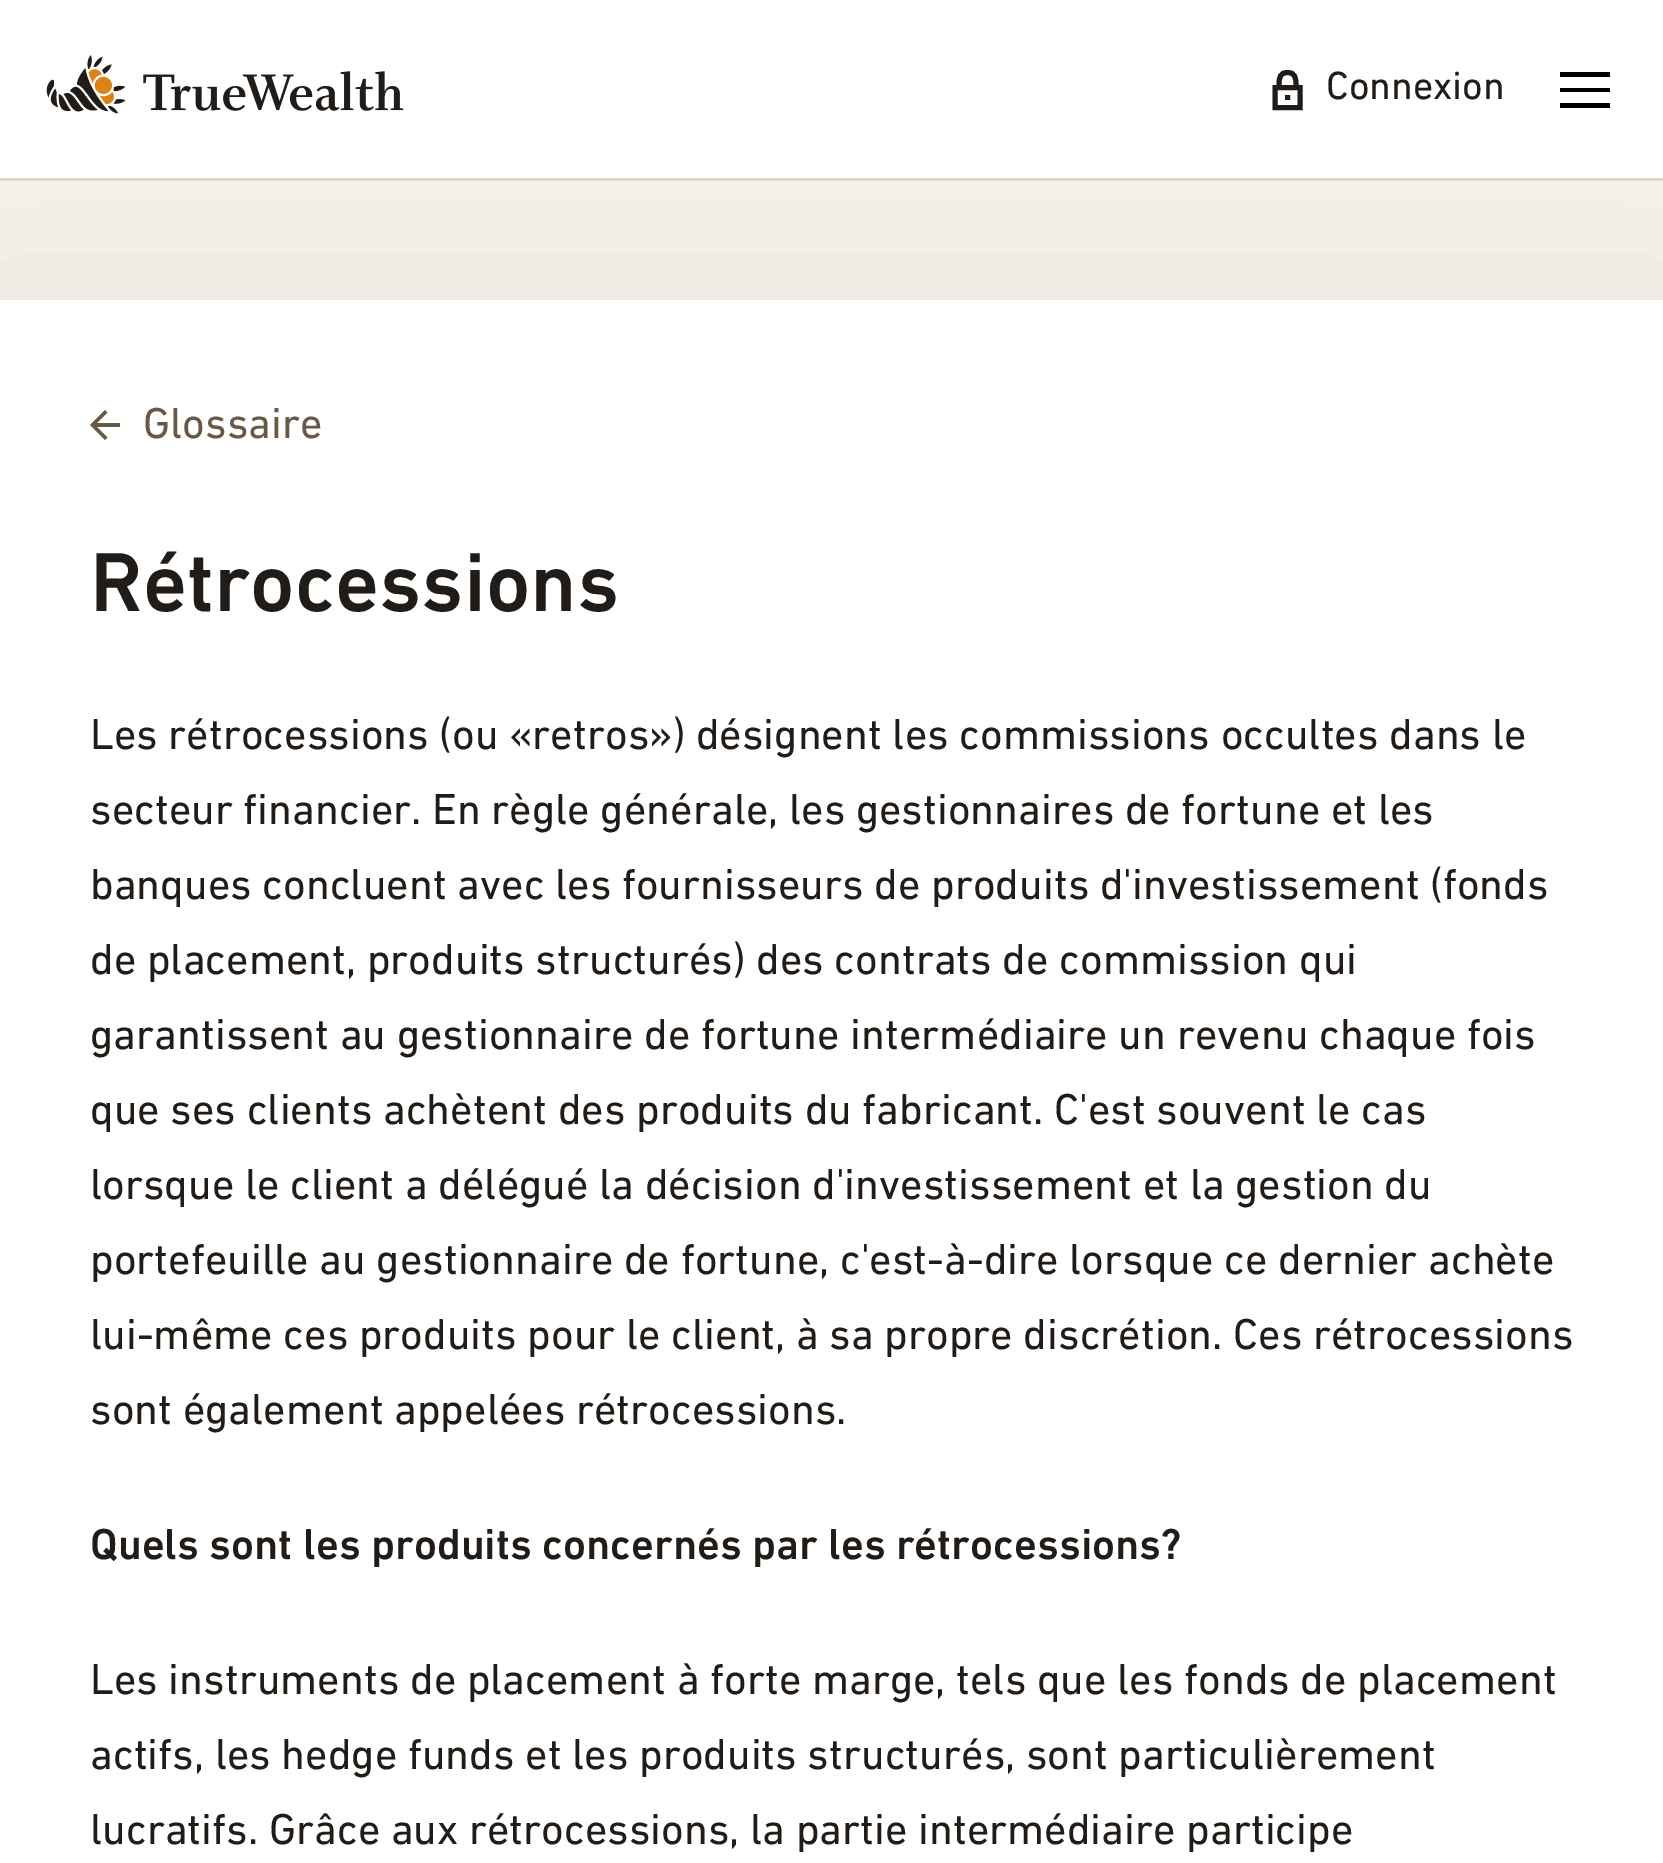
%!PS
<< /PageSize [1663 1863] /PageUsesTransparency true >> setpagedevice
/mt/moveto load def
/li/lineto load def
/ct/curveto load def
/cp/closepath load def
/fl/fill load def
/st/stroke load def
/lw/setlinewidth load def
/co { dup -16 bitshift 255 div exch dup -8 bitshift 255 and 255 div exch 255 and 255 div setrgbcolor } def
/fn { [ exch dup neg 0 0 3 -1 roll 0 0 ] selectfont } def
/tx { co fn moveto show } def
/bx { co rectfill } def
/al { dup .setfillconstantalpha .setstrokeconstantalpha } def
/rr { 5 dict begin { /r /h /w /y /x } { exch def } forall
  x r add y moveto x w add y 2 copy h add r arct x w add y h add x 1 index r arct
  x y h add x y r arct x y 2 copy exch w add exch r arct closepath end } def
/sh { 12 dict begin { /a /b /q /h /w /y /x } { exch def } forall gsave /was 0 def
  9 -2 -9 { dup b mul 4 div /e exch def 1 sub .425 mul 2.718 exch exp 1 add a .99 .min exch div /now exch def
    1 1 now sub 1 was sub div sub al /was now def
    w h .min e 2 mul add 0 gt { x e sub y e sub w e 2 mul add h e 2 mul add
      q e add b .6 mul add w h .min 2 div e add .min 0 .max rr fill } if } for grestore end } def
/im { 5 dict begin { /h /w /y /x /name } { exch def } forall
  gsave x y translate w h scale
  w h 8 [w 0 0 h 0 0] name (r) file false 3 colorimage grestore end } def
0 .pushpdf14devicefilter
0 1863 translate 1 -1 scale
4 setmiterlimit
0 0 1663 1863 16#F6F1EB bx
16#000000 co
0 375 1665 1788 0 100 .15 sh
0 0 1663 178 16#FFFFFF bx
0 178 1663 3 16#E0D5C7 bx
(media/1.raw) 46 55 358 59 im
16#211C17 co
5 lw
1287.5 95 mt 1287.5 100 li 1279 85 mt 1279 77.5 1280 72.5 1287.5 72.5 ct 1295 72.5 1296 77.5 1296 85 ct 1275 87.5 mt 1300 87.5 li 1300 107.5 li 1275 107.5 li cp st
16#000000 co
1560 77 mt 1610 77 li 1610 72 li 1560 72 li cp 1560 92 mt 1610 92 li 1610 88 li 1560 88 li cp 1560 108 mt 1610 108 li 1610 103 li 1560 103 li cp fl
0 300 1663 1563 16#FFFFFF bx
16#685946 co
120 423 mt 97 423 li 107.5 412.5 li 105 410 li 90 425 li 105 440 li 107.5 437.5 li 97 427 li 120 427 li cp fl
(Connexion) 1326 99 /DINNext-Regular 40 16#211C17 tx
(Glossaire) 143 438 /DINNext-Regular 44 16#685946 tx
(Rétrocessions) 90 611 /DINNext-Medium 85 16#211C17 tx
(Les rétrocessions \(ou «retros»\) désignent les commissions occultes dans le) 90 749 /DINNext-Regular 44 16#211C17 tx
(secteur financier. En règle générale, les gestionnaires de fortune et les) 90 824 /DINNext-Regular 44 16#211C17 tx
(banques concluent avec les fournisseurs de produits d'investissement \(fonds) 90 899 /DINNext-Regular 44 16#211C17 tx
(de placement, produits structurés\) des contrats de commission qui) 90 974 /DINNext-Regular 44 16#211C17 tx
(garantissent au gestionnaire de fortune intermédiaire un revenu chaque fois) 90 1049 /DINNext-Regular 44 16#211C17 tx
(que ses clients achètent des produits du fabricant. C'est souvent le cas) 90 1124 /DINNext-Regular 44 16#211C17 tx
(lorsque le client a délégué la décision d'investissement et la gestion du) 90 1199 /DINNext-Regular 44 16#211C17 tx
(portefeuille au gestionnaire de fortune, c'est-à-dire lorsque ce dernier achète) 90 1274 /DINNext-Regular 44 16#211C17 tx
(lui-même ces produits pour le client, à sa propre discrétion. Ces rétrocessions) 90 1349 /DINNext-Regular 44 16#211C17 tx
(sont également appelées rétrocessions.) 90 1424 /DINNext-Regular 44 16#211C17 tx
(Quels sont les produits concernés par les rétrocessions?) 90 1559 /DINNext-Medium 44 16#211C17 tx
(Les instruments de placement à forte marge, tels que les fonds de placement) 90 1694 /DINNext-Regular 44 16#211C17 tx
(actifs, les hedge funds et les produits structurés, sont particulièrement) 90 1769 /DINNext-Regular 44 16#211C17 tx
(lucratifs. Grâce aux rétrocessions, la partie intermédiaire participe) 90 1844 /DINNext-Regular 44 16#211C17 tx
.poppdf14devicefilter showpage
